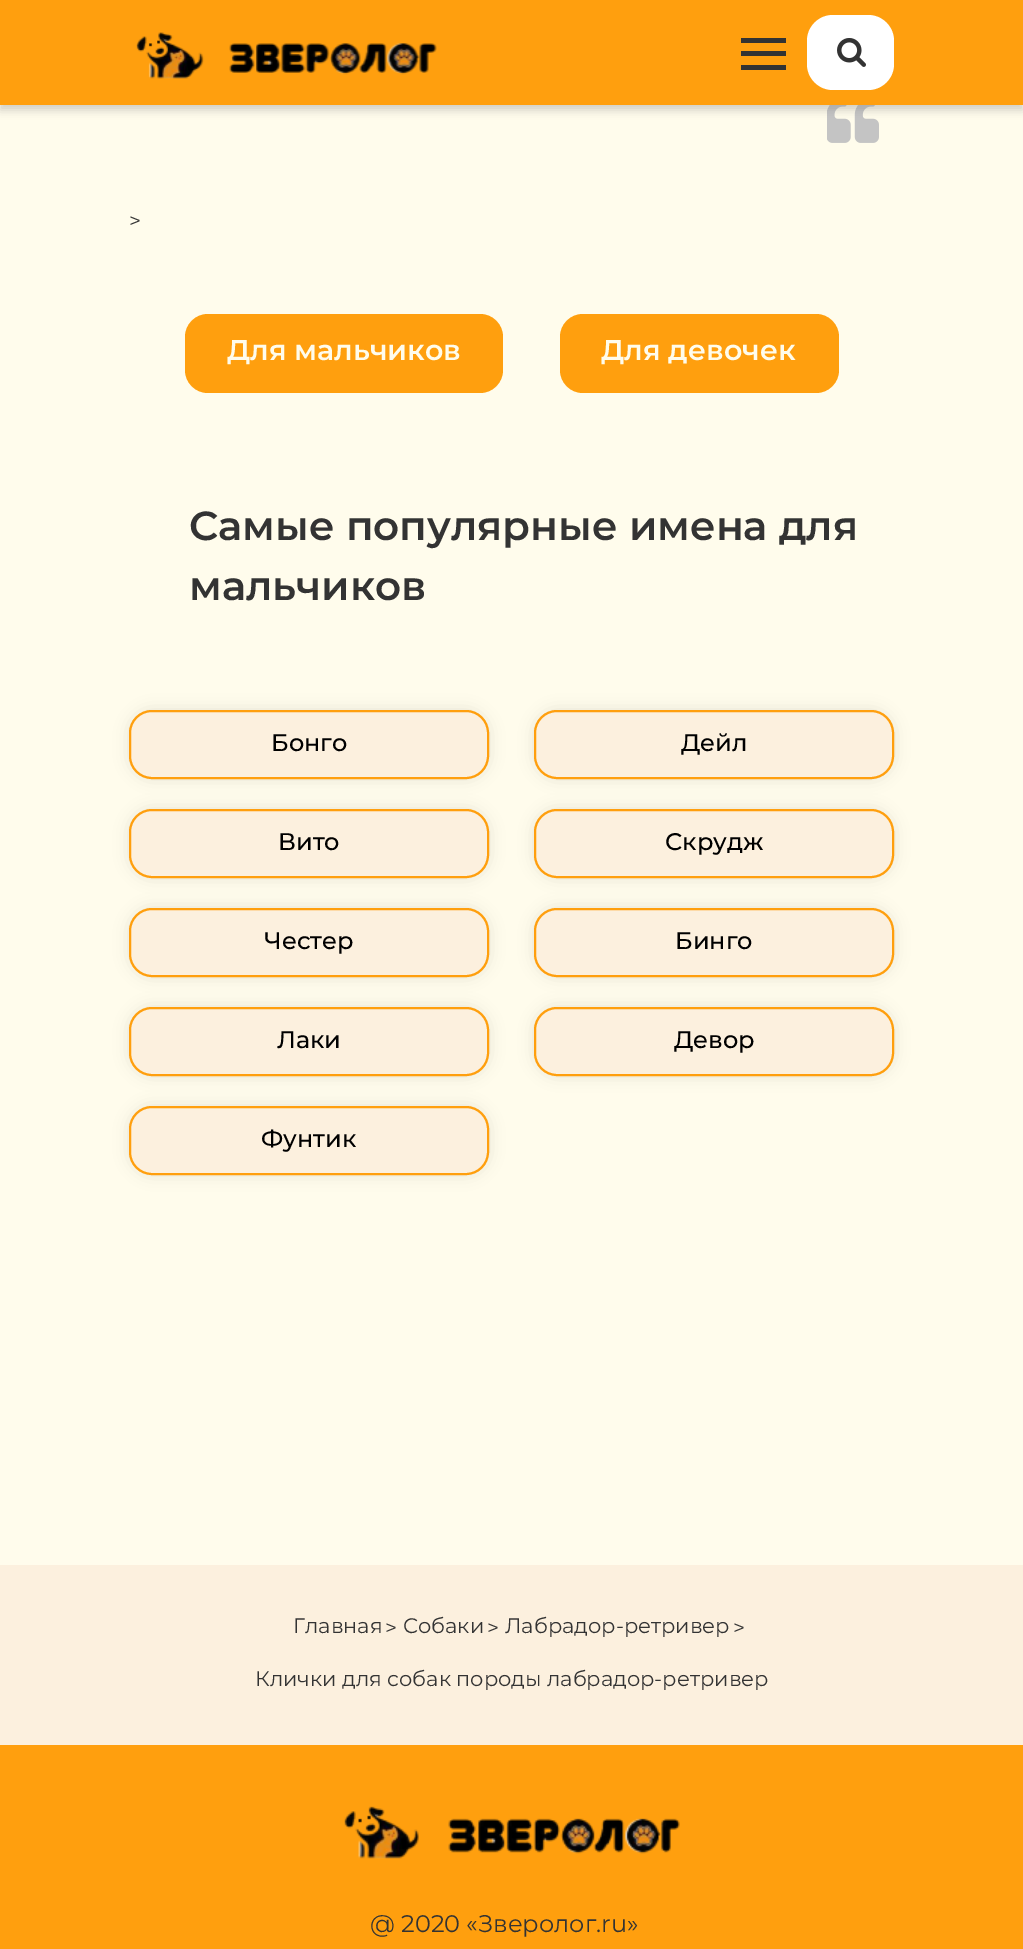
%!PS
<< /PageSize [1023 1949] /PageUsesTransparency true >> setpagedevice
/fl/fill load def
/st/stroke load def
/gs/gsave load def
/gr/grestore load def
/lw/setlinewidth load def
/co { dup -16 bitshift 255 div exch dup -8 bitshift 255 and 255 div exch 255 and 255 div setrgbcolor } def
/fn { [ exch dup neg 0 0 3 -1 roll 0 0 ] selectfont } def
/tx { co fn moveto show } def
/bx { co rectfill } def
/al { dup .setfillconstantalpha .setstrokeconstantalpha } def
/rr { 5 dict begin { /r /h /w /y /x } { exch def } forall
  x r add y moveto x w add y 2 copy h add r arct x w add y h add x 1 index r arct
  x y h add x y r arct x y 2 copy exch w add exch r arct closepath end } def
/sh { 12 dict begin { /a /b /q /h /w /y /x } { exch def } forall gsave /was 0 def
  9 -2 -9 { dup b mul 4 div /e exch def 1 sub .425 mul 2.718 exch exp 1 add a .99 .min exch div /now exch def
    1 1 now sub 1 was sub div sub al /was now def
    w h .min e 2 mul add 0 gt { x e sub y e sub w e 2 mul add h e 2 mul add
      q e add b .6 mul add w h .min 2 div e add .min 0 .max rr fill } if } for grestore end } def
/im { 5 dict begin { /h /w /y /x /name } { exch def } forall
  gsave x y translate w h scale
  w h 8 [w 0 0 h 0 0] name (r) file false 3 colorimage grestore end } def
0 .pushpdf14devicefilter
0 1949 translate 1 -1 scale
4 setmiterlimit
0 0 1023 1949 16#FFFCEC bx
(media/3.raw) 827 105 52 38 im
16#8B8B8B co
0 5 1023 105 0 4.5 .4 sh
0 0 1023 105 16#FF9F0E bx
(media/1.raw) 136 32 301 47 im
741 38 45 5 16#333333 bx
741 51 45 5 16#333333 bx
741 65 45 5 16#333333 bx
16#FFFFFF co
807 15 87 75 26 rr fl
(media/2.raw) 837 38 29 29 im
16#FF9F0E co
185 314 318 79 23 rr fl
560 314 279 79 23 rr fl
16#000000 co
129 710 360 69 23 7.5 .1 sh
16#FCF0DE co
130 711 358 67 22 rr gs fl gr
16#FF9F0E co
2 lw
st
16#000000 co
534 710 360 69 23 7.5 .1 sh
16#FCF0DE co
535 711 358 67 22 rr gs fl gr
16#FF9F0E co
st
16#000000 co
129 809 360 69 23 7.5 .1 sh
16#FCF0DE co
130 810 358 67 22 rr gs fl gr
16#FF9F0E co
st
16#000000 co
534 809 360 69 23 7.5 .1 sh
16#FCF0DE co
535 810 358 67 22 rr gs fl gr
16#FF9F0E co
st
16#000000 co
129 908 360 69 23 7.5 .1 sh
16#FCF0DE co
130 909 358 67 22 rr gs fl gr
16#FF9F0E co
st
16#000000 co
534 908 360 69 23 7.5 .1 sh
16#FCF0DE co
535 909 358 67 22 rr gs fl gr
16#FF9F0E co
st
16#000000 co
129 1007 360 69 23 7.5 .1 sh
16#FCF0DE co
130 1008 358 67 22 rr gs fl gr
16#FF9F0E co
st
16#000000 co
534 1007 360 69 23 7.5 .1 sh
16#FCF0DE co
535 1008 358 67 22 rr gs fl gr
16#FF9F0E co
st
16#000000 co
129 1106 360 69 23 7.5 .1 sh
16#FCF0DE co
130 1107 358 67 22 rr gs fl gr
16#FF9F0E co
st
0 1565 1023 180 16#FCF0DE bx
0 1745 1023 204 16#FF9F0E bx
(media/4.raw) 344 1806 336 53 im
(>) 129 228 /Montserrat-Regular 21 16#333333 tx
(Для мальчиков) 227 360 /Montserrat-SemiBold 28.5 16#FFFCEC tx
(Для девочек) 601 360 /Montserrat-SemiBold 28.5 16#FFFCEC tx
(Самые популярные имена для) 189 540 /Montserrat-SemiBold 40.5 16#333333 tx
(мальчиков) 189 600 /Montserrat-SemiBold 40.5 16#333333 tx
(Бонго) 271 751 /Montserrat-Medium 24 16#000000 tx
(Дейл) 681 751 /Montserrat-Medium 24 16#000000 tx
(Вито) 278 850 /Montserrat-Medium 24 16#000000 tx
(Скрудж) 665 850 /Montserrat-Medium 24 16#000000 tx
(Честер) 264 949 /Montserrat-Medium 24 16#000000 tx
(Бинго) 675 949 /Montserrat-Medium 24 16#000000 tx
(Лаки) 277 1048 /Montserrat-Medium 24 16#000000 tx
(Девор) 674 1048 /Montserrat-Medium 24 16#000000 tx
(Фунтик) 261 1147 /Montserrat-Medium 24 16#000000 tx
(Главная) 293 1633 /Montserrat-Regular 21 16#333333 tx
(>) 385 1635 /Montserrat-Regular 21 16#333333 tx
(Собаки) 403 1633 /Montserrat-Regular 21 16#333333 tx
(>) 487 1635 /Montserrat-Regular 21 16#333333 tx
(Лабрадор-ретривер) 505 1633 /Montserrat-Regular 21 16#333333 tx
(>) 733 1635 /Montserrat-Regular 21 16#333333 tx
(Клички для собак породы лабрадор-ретривер) 255 1686 /Montserrat-Regular 21 16#333333 tx
(@ 2020 «Зверолог.ru») 370 1932 /Montserrat-Regular 24 16#333333 tx
.poppdf14devicefilter showpage
